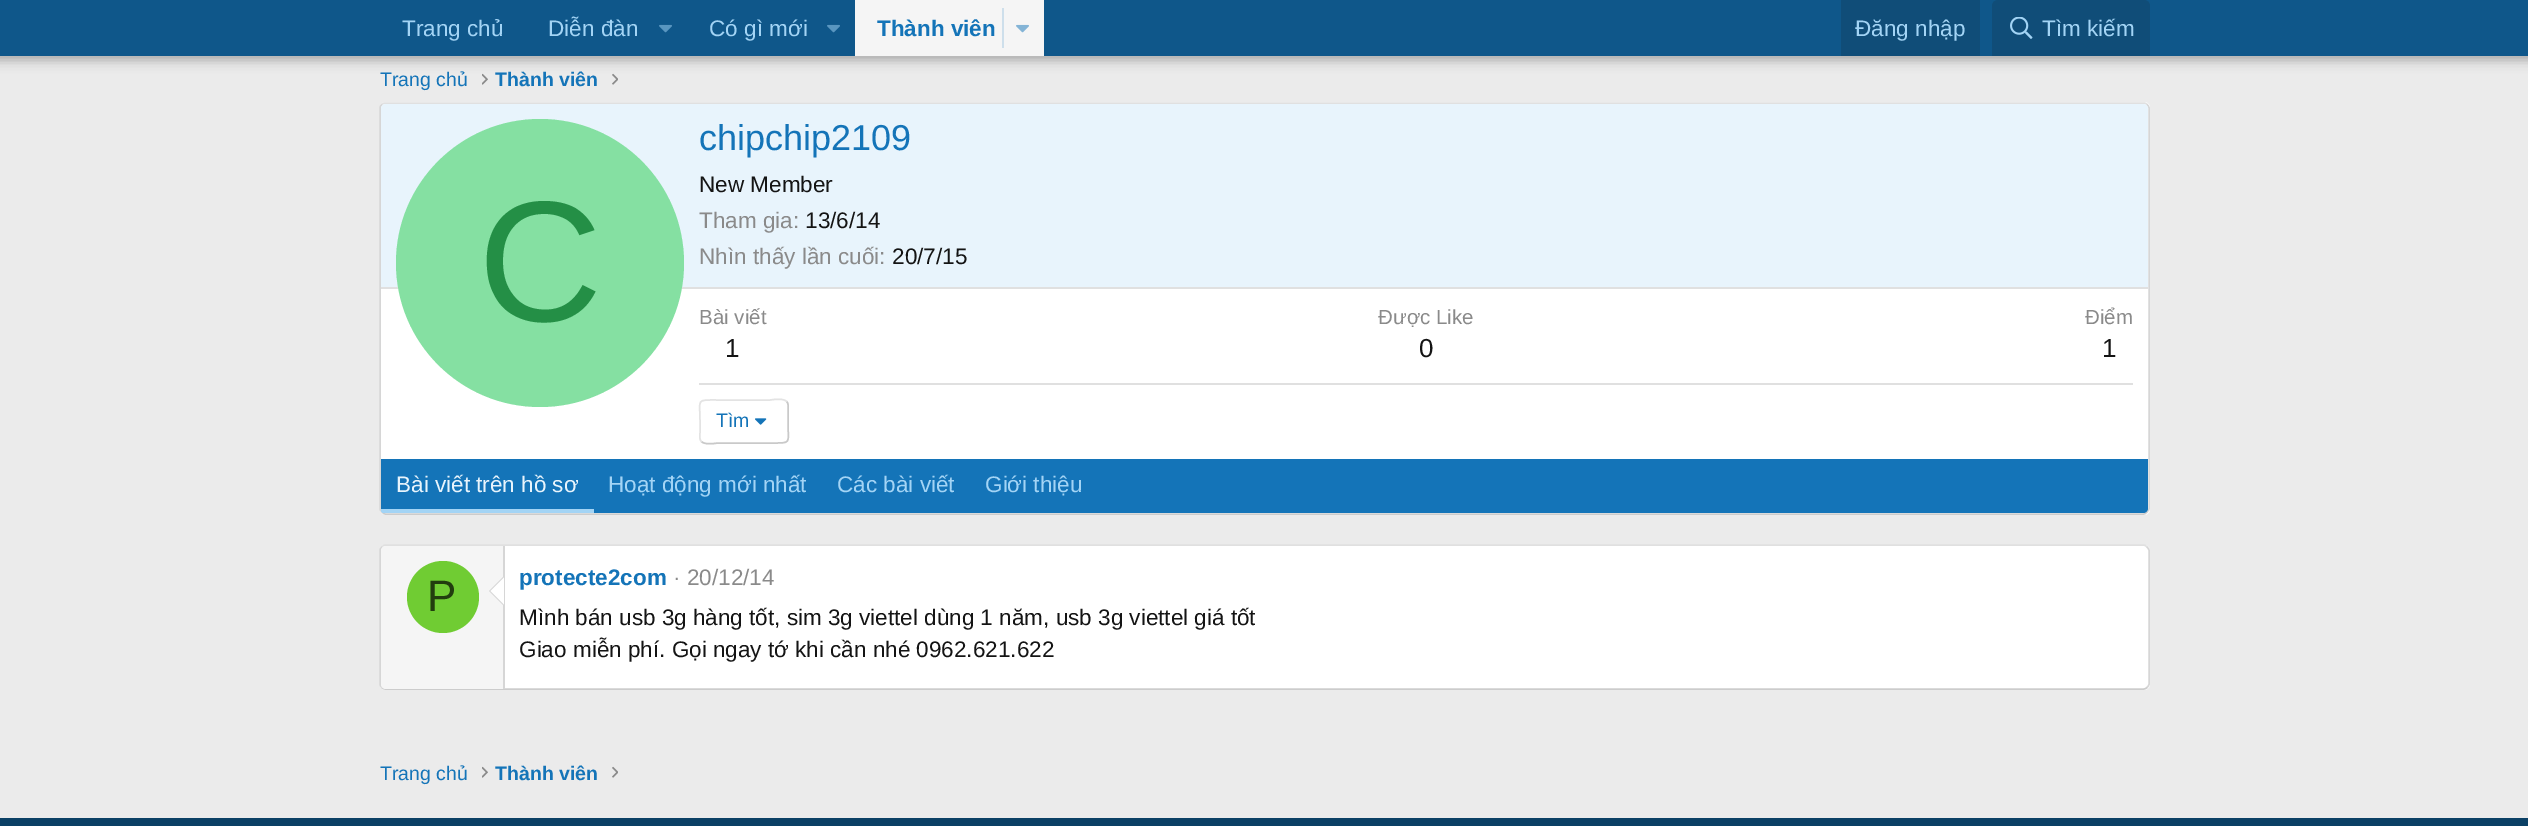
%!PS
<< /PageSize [2528 826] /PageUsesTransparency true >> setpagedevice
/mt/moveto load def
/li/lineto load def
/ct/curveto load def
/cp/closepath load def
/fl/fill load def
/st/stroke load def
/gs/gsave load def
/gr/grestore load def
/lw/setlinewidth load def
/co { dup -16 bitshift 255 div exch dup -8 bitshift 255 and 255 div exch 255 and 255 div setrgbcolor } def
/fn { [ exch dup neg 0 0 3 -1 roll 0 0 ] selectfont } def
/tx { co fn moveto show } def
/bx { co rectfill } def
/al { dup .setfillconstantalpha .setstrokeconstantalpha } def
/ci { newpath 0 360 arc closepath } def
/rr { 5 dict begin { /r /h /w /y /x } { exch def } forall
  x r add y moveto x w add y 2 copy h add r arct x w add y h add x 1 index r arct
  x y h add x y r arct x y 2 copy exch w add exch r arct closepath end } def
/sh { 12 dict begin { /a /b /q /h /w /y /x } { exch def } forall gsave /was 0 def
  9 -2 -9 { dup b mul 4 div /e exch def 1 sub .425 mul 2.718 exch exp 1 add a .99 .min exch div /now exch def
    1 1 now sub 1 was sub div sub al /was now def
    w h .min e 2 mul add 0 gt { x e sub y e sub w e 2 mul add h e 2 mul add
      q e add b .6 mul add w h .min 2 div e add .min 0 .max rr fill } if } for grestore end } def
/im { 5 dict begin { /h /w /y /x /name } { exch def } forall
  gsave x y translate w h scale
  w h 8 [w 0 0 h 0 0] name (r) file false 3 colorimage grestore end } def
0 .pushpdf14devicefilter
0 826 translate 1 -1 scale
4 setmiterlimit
0 0 2528 826 16#EBEBEB bx
(media/4.raw) 482 73 6 12 im
(media/5.raw) 612 73 6 12 im
16#000000 co
-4 -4 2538 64 0 6 .3 sh
0 0 2528 56 16#0F578A bx
(media/1.raw) 659 24 13 9 im
(media/1.raw) 827 24 13 9 im
855 0 189 56 16#F5F5F5 bx
1002 8 2 40 16#CEDFEB bx
(media/2.raw) 1016 24 13 9 im
1841 0 139 56 16#104D78 bx
1998 0 mt 2144 0 li 2147.5 0 2150 2.5 2150 6 ct 2150 56 li 1992 56 li 1992 6 li 1992 2.5 1994.5 0 1998 0 ct cp fl
(media/3.raw) 2010 17 23 22 im
16#FFFFFF co
380 102 1770 413 6 rr fl
16#E0E0E0 co
1.5 lw
382 104.5 mt 383 103.5 384 103 385.5 103 ct 2143.5 103 li 2145 103 2146 103.5 2147 104.5 ct st
16#D6D6D6 co
2147 104.5 mt 2148 105.5 2149 106.5 2149 108 ct 2149 508.5 li 2149 510 2148 511 2147 512 ct st
16#CCCCCC co
2147 512 mt 2146 513 2145 514 2143.5 514 ct 385.5 514 li 384 514 383 513 382 512 ct st
16#D6D6D6 co
382 512 mt 381 511 380 510 380 508.5 ct 380 108 li 380 106.5 381 105.5 382 104.5 ct st
16#E8F4FC co
386 104 mt 2143 104 li 2146 104 2148 106 2148 109 ct 2148 288 li 381 288 li 381 109 li 381 106 383 104 386 104 ct cp fl
381 287 1767 2 16#E0E0E0 bx
16#85E0A2 co
540 263 144 ci fl
699 383 1434 2 16#E0E0E0 bx
16#C9C9C9 co
786.5 401.5 mt 789 403.5 788 407.5 788 410.5 ct 788 421.5 li 788 444.5 792.5 443 770 443 ct 718 443 li 717 443 705 445.5 701.5 441.5 ct st
16#E3E3E3 co
701.5 441.5 mt 699 439.5 700 435.5 700 432.5 ct 700 421.5 li 700 398.5 695.5 400 718 400 ct 770 400 li 771 400 783 397.5 786.5 401.5 ct st
(media/6.raw) 755 418 12 7 im
16#1474B8 co
381 459 mt 2148 459 li 2148 508 li 2148 511 2146 513 2143 513 ct 386 513 li 383 513 381 511 381 508 ct cp fl
gs
381 459 mt 2148 459 li 2148 508 li 2148 511 2146 513 2143 513 ct 386 513 li 383 513 381 511 381 508 ct cp clip newpath
381 509 213 4 16#A3D4F5 bx
gr
16#FFFFFF co
380 545 1770 145 6 rr fl
16#E0E0E0 co
382 547 mt 383 546 384 545 385.5 545 ct 2143.5 545 li 2145 545 2146 546 2147 547 ct st
16#D6D6D6 co
2147 547 mt 2148 548 2149 549 2149 550.5 ct 2149 684 li 2149 685.5 2148 686.5 2147 687.5 ct st
16#CCCCCC co
2147 687.5 mt 2146 688.5 2145 689 2143.5 689 ct 385.5 689 li 384 689 383 688.5 382 687.5 ct st
16#D6D6D6 co
382 687.5 mt 381 686.5 380 685.5 380 684 ct 380 550.5 li 380 549 381 548 382 547 ct st
16#F5F5F5 co
386 546 mt 504 546 li 504 689 li 386 689 li 383 689 381 687 381 684 ct 381 551 li 381 548 383 546 386 546 ct cp fl
503 546 2 143 16#D6D6D6 bx
16#70CC33 co
443 597 36 ci fl
16#D6D6D6 co
504 576 mt 504 606 li 489 591 li cp fl
16#FFFFFF co
504 577.5 mt 504 604.5 li 490.5 591 li cp fl
(media/4.raw) 482 766 6 12 im
(media/5.raw) 612 766 6 12 im
0 818 2528 8 16#0B4065 bx
(Trang chủ) 402 36 /LiberationSans-Regular 22.5 16#A3D4F5 tx
(Diễn đàn) 548 36 /LiberationSans-Regular 22.5 16#A3D4F5 tx
(Có gì mới) 709 36 /LiberationSans-Regular 22.5 16#A3D4F5 tx
(Thành viên) 877 36 /LiberationSans-Bold 22.5 16#1474B8 tx
(Đăng nhập) 1855 36 /LiberationSans-Regular 22.5 16#A3D4F5 tx
(Tìm kiếm) 2042 36 /LiberationSans-Regular 22.5 16#A3D4F5 tx
(Trang chủ) 380 86 /LiberationSans-Regular 19.5 16#1474B8 tx
(Thành viên) 495 86 /LiberationSans-Bold 19.5 16#1474B8 tx
(C) 478 321 /LiberationSans-Regular 172 16#248F46 tx
(chipchip2109) 699 150 /LiberationSans-Regular 36 16#1474B8 tx
(New Member) 699 192 /LiberationSans-Regular 22.5 16#141414 tx
(Tham gia:) 699 228 /LiberationSans-Regular 22.5 16#8A8A8A tx
(13/6/14) 805 228 /LiberationSans-Regular 22.5 16#141414 tx
(Nhìn thấy lần cuối:) 699 264 /LiberationSans-Regular 22.5 16#8A8A8A tx
(20/7/15) 892 264 /LiberationSans-Regular 22.5 16#141414 tx
(Bài viết) 699 324 /LiberationSans-Regular 20.5 16#8A8A8A tx
(1) 725 357 /LiberationSans-Regular 26 16#141414 tx
(Được Like) 1378 324 /LiberationSans-Regular 20.5 16#8A8A8A tx
(0) 1419 357 /LiberationSans-Regular 26 16#141414 tx
(Điểm) 2085 324 /LiberationSans-Regular 20.5 16#8A8A8A tx
(1) 2102 357 /LiberationSans-Regular 26 16#141414 tx
(Tìm) 716 427 /LiberationSans-Regular 19.5 16#1474B8 tx
(Bài viết trên hồ sơ) 396 492 /LiberationSans-Regular 22.5 16#E8F4FC tx
(Hoạt động mới nhất) 608 492 /LiberationSans-Regular 22.5 16#A3D4F5 tx
(Các bài viết) 837 492 /LiberationSans-Regular 22.5 16#A3D4F5 tx
(Giới thiệu) 985 492 /LiberationSans-Regular 22.5 16#A3D4F5 tx
(P) 427 611 /LiberationSans-Regular 44 16#223D0F tx
(protecte2com) 519 585 /LiberationSans-Bold 22.5 16#1474B8 tx
(· 20/12/14) 673 585 /LiberationSans-Regular 22.5 16#8A8A8A tx
(Mình bán usb 3g hàng tốt, sim 3g viettel dùng 1 năm, usb 3g viettel giá tốt) 519 625 /LiberationSans-Regular 22.5 16#141414 tx
(Giao miễn phí. Gọi ngay tớ khi cần nhé 0962.621.622) 519 657 /LiberationSans-Regular 22.5 16#141414 tx
(Trang chủ) 380 780 /LiberationSans-Regular 19.5 16#1474B8 tx
(Thành viên) 495 780 /LiberationSans-Bold 19.5 16#1474B8 tx
.poppdf14devicefilter showpage
